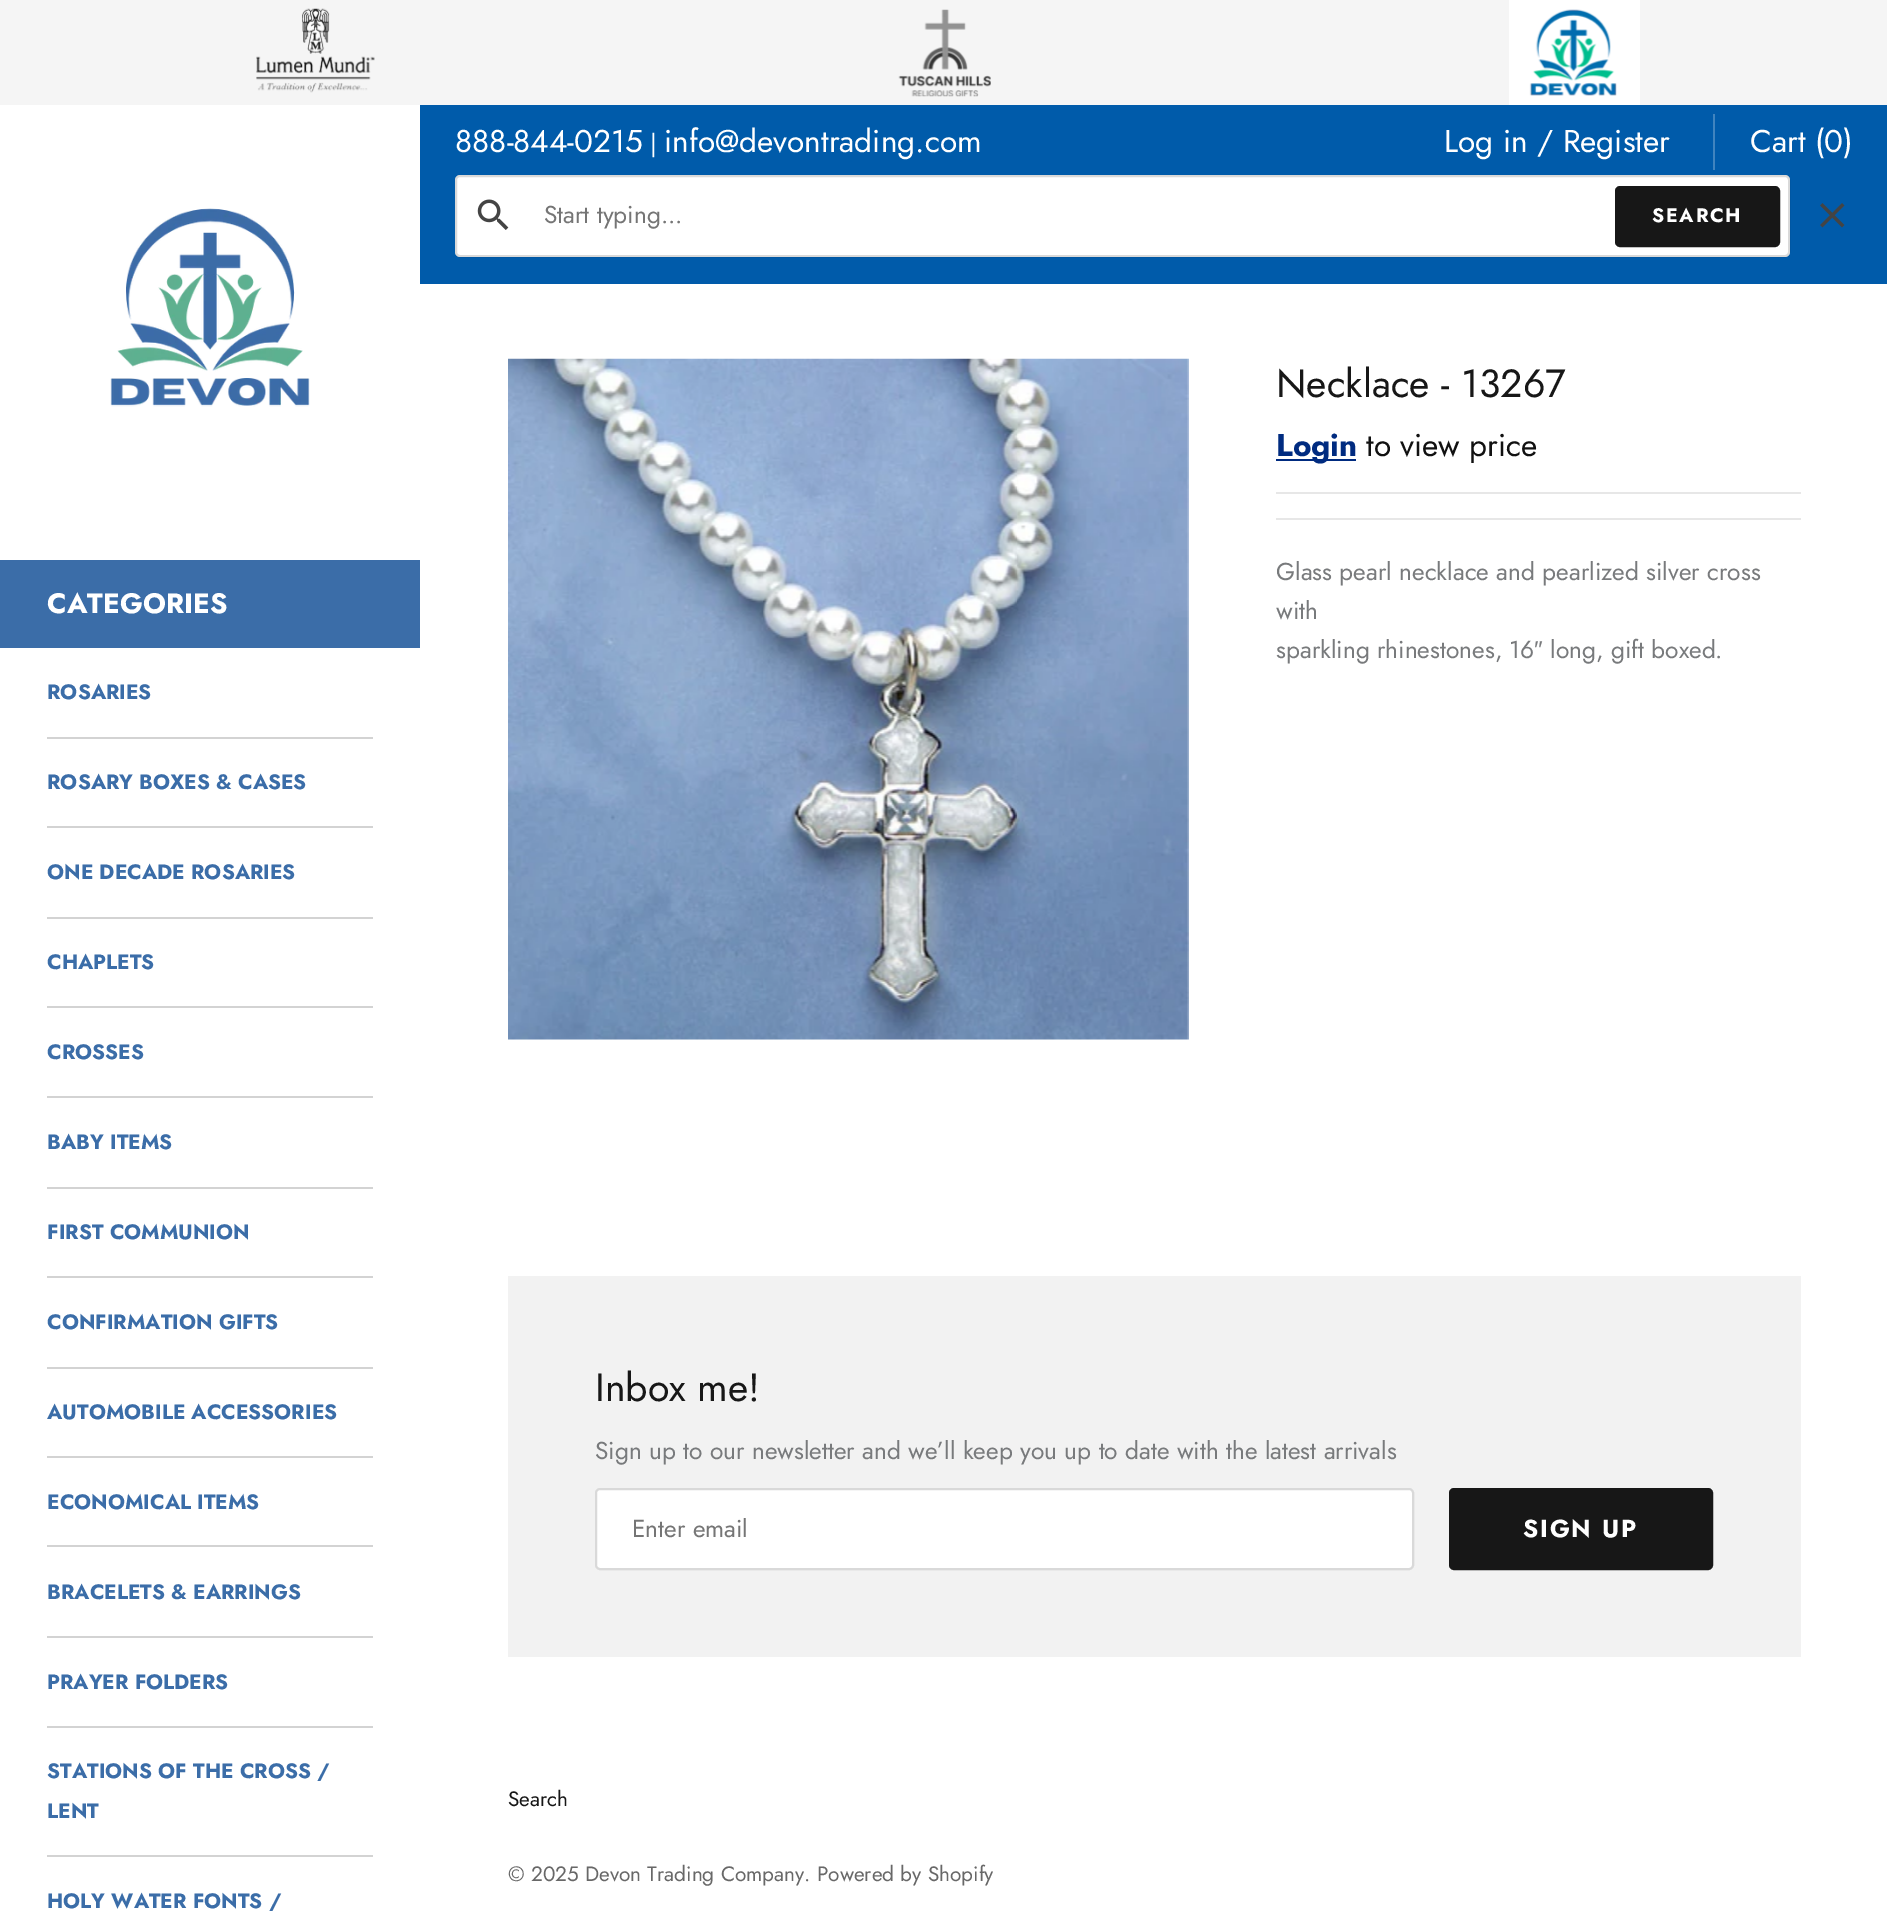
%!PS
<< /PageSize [1887 1928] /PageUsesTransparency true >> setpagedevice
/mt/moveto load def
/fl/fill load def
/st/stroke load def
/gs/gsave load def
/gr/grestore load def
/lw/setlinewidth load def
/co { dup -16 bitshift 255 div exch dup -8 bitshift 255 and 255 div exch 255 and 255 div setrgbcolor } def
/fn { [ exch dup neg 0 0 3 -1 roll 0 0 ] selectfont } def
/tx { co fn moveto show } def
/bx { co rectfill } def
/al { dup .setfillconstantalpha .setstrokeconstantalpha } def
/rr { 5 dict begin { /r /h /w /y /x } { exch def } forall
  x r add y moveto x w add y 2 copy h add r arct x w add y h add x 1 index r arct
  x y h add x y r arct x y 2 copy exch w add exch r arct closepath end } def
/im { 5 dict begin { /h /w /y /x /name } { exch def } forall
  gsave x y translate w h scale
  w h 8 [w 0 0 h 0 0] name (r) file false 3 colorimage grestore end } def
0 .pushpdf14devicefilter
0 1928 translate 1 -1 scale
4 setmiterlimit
0 0 1887 1928 16#FFFFFF bx
0 0 1887 105 16#F5F5F5 bx
(media/1.raw) 256 8 119 85 im
(media/2.raw) 898 9 93 88 im
1509 0 131 105 16#FFFFFF bx
(media/3.raw) 1529 9 88 87 im
420 105 1467 179 16#005BAA bx
1713 114 2 56 16#4084BF bx
16#FFFFFF co
455 175 1335 82 5 rr fl
0.15 al
16#000000 co
2 lw
456 176 1333 80 4 rr st
1 al
(media/4.raw) 477 199 32 31 im
16#171717 co
1616 187 163 59 4 rr gs fl gr
st
(media/5.raw) 1820 203 25 25 im
(media/6.raw) 110 208 200 199 im
0 560 420 88 16#3B6DA8 bx
47 737 326 2 16#D3D3D3 bx
47 826 326 2 16#D3D3D3 bx
47 917 326 2 16#D3D3D3 bx
47 1006 326 2 16#D3D3D3 bx
47 1096 326 2 16#D3D3D3 bx
47 1187 326 2 16#D3D3D3 bx
47 1276 326 2 16#D3D3D3 bx
47 1367 326 2 16#D3D3D3 bx
47 1456 326 2 16#D3D3D3 bx
47 1545 326 2 16#D3D3D3 bx
47 1636 326 2 16#D3D3D3 bx
47 1726 326 2 16#D3D3D3 bx
47 1855 326 2 16#D3D3D3 bx
(media/7.raw) 508 358 681 682 im
1276 459 80 2 16#002B80 bx
1276 492 525 2 16#E7E7E7 bx
1276 518 525 2 16#E7E7E7 bx
508 1276 1293 381 16#F2F2F2 bx
16#FFFFFF co
595 1488 819 82 5 rr fl
0.15 al
16#000000 co
596 1489 817 80 4 rr st
1 al
16#171717 co
1450 1489 262 80 4 rr gs fl gr
st
(888-844-0215) 455 152 /Jost-Regular 31.5 16#FFFFFF tx
(|) 650 152 /Jost-Regular 24.5 16#FFFFFF tx
(info@devontrading.com) 664 152 /Jost-Regular 31.5 16#FFFFFF tx
(Log in / Register) 1444 152 /Jost-Regular 31.5 16#FFFFFF tx
(Cart \(0\)) 1750 152 /Jost-Regular 31.5 16#FFFFFF tx
(Start typing...) 544 223 /Jost-Regular 24.5 16#757575 tx
/Jost-Bold 19.5 fn
16#FFFFFF co
1652 222 mt 1.75 0 (SEARCH) ashow
(CATEGORIES) 47 613 /Jost-Bold 28 16#FFFFFF tx
(ROSARIES) 47 699 /Jost-Bold 20.8 16#3B6DA8 tx
(ROSARY BOXES & CASES) 47 789 /Jost-Bold 20.8 16#3B6DA8 tx
(ONE DECADE ROSARIES) 47 879 /Jost-Bold 20.8 16#3B6DA8 tx
(CHAPLETS) 47 969 /Jost-Bold 20.8 16#3B6DA8 tx
(CROSSES) 47 1059 /Jost-Bold 20.8 16#3B6DA8 tx
(BABY ITEMS) 47 1149 /Jost-Bold 20.8 16#3B6DA8 tx
(FIRST COMMUNION) 47 1239 /Jost-Bold 20.8 16#3B6DA8 tx
(CONFIRMATION GIFTS) 47 1329 /Jost-Bold 20.8 16#3B6DA8 tx
(AUTOMOBILE ACCESSORIES) 47 1419 /Jost-Bold 20.8 16#3B6DA8 tx
(ECONOMICAL ITEMS) 47 1509 /Jost-Bold 20.8 16#3B6DA8 tx
(BRACELETS & EARRINGS) 47 1599 /Jost-Bold 20.8 16#3B6DA8 tx
(PRAYER FOLDERS) 47 1689 /Jost-Bold 20.8 16#3B6DA8 tx
(STATIONS OF THE CROSS /) 47 1778 /Jost-Bold 20.8 16#3B6DA8 tx
(LENT) 47 1818 /Jost-Bold 20.8 16#3B6DA8 tx
(HOLY WATER FONTS /) 47 1908 /Jost-Bold 20.8 16#3B6DA8 tx
(Necklace - 13267) 1276 397 /Jost-Regular 39.25 16#171717 tx
(Login) 1276 456 /Jost-Bold 31.5 16#002B80 tx
(to view price) 1366 456 /Jost-Regular 31.5 16#111111 tx
(Glass pearl necklace and pearlized silver cross) 1276 580 /Jost-Regular 24.5 16#787A7C tx
(with) 1276 619 /Jost-Regular 24.5 16#787A7C tx
(sparkling rhinestones, 16) 1276 658 /Jost-Regular 24.5 16#787A7C tx
(″) 1534 658 /LiberationSans-Regular 24.5 16#787A7C tx
(long, gift boxed.) 1550 658 /Jost-Regular 24.5 16#787A7C tx
(Inbox me!) 595 1401 /Jost-Regular 39.25 16#171717 tx
(Sign up to our newsletter and we’ll keep you up to date with the latest arrivals) 595 1459 /Jost-Regular 24.5 16#787A7C tx
(Enter email) 632 1537 /Jost-Regular 24.5 16#757575 tx
/Jost-Bold 24.5 fn
16#FFFFFF co
1523 1537 mt 1.75 0 (SIGN UP) ashow
(Search) 508 1806 /Jost-Regular 20.8 16#171717 tx
(© 2025 Devon Trading Company. Powered by Shopify) 508 1881 /Jost-Regular 20.8 16#686868 tx
.poppdf14devicefilter showpage
